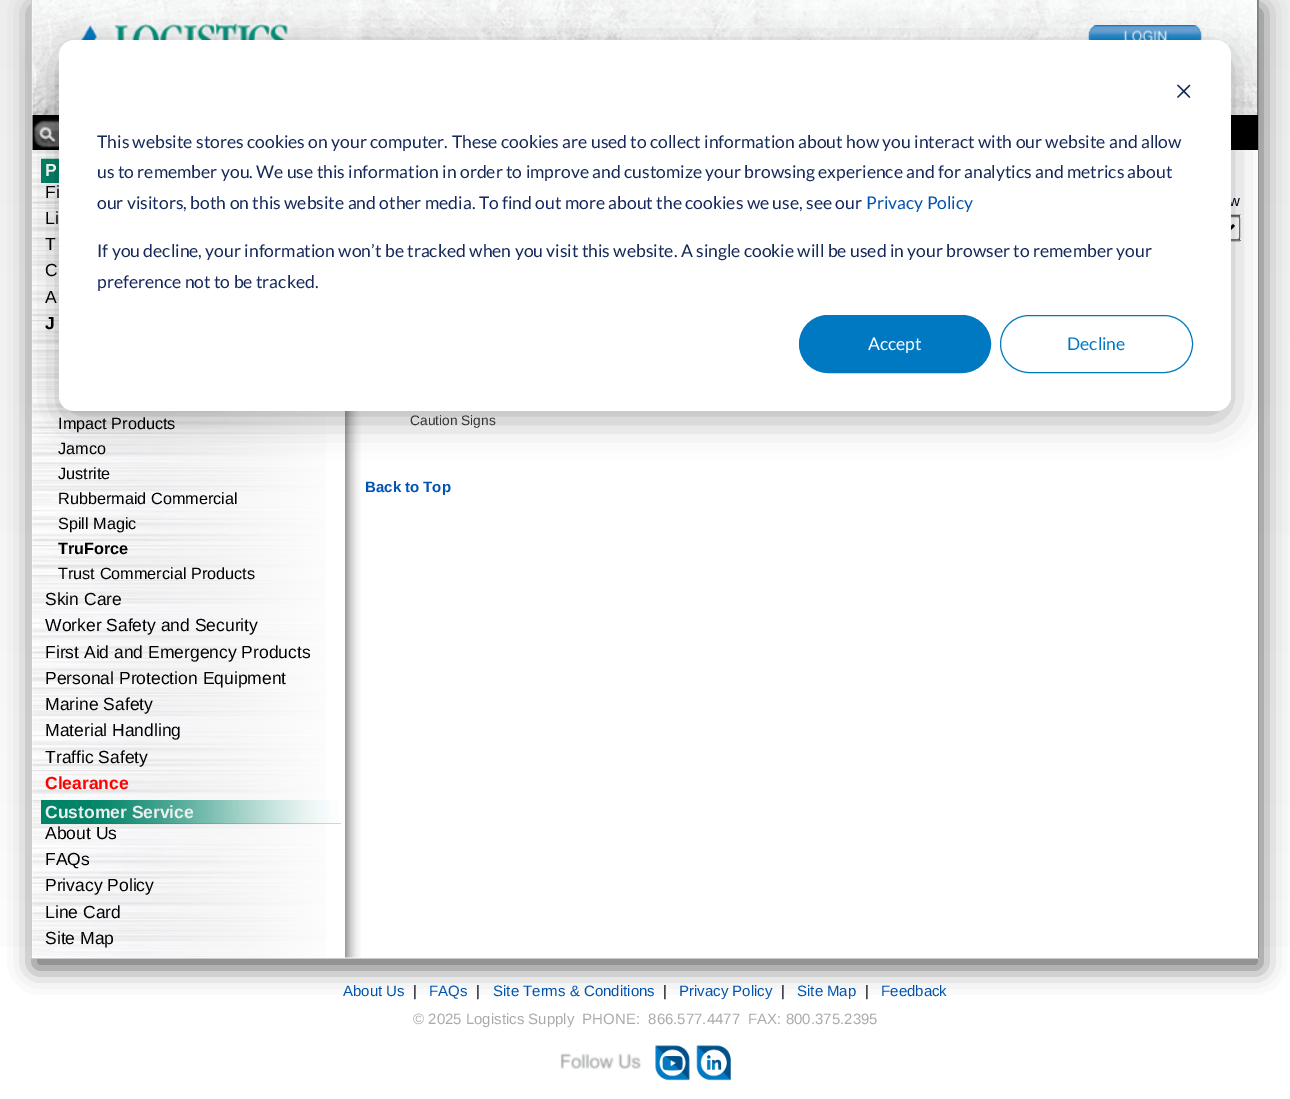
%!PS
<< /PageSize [1290 1099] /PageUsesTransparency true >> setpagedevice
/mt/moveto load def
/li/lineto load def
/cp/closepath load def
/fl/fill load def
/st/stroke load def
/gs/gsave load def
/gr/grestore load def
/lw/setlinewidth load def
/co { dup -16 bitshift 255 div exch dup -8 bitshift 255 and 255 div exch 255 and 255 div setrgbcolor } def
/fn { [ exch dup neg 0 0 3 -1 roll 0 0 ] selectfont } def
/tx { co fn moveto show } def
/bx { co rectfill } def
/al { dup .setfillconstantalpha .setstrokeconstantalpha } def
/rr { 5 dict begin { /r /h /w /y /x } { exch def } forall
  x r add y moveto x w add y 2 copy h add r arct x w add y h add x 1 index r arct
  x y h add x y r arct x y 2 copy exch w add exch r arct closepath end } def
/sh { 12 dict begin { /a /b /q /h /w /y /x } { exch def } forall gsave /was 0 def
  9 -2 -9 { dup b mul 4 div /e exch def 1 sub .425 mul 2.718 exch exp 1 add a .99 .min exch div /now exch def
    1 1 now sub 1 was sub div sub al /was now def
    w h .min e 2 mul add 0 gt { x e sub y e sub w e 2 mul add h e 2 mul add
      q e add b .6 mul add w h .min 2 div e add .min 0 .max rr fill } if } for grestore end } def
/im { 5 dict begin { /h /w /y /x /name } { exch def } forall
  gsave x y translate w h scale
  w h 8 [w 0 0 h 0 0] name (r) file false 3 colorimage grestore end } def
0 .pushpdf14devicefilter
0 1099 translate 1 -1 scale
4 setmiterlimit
0 0 1290 1099 16#FFFFFF bx
gs 0 0 mt 1290 0 li 1290 947 li 0 947 li cp clip newpath
<< /ShadingType 2 /ColorSpace /DeviceRGB /Coords [645 0 645 1089] /Extend [true true] /Function << /FunctionType 3 /Domain [0 1] /Functions [<< /FunctionType 2 /Domain [0 1] /C0 [.929 .929 .929] /C1 [.965 .965 .965] /N 1 >> << /FunctionType 2 /Domain [0 1] /C0 [.965 .965 .965] /C1 [1 1 1] /N 1 >>] /Bounds [.53] /Encode [0 1 0 1] >> >> shfill gr
16#323232 co
34 9 1227 959 0 12 .75 sh
32 0 1226 958 16#FFFFFF bx
1258 0 1 959 16#888888 bx
31 958 1228 1 16#CCCCCC bx
31 0 1 959 16#CCCCCC bx
1257 0 1 115 16#000000 bx
(media/2.raw) 32 0 1226 115 im
(media/3.raw) 64 18 238 26 im
(media/4.raw) 1088 25 114 15 im
1231 115 27 35 16#000000 bx
(media/5.raw) 32 115 27 35 im
(media/6.raw) 32 150 294 808 im
41 159 18 24 16#008367 bx
(media/7.raw) 41 158 18 25 im
(media/9.raw) 345 411 16 547 im
(media/10.raw) 1231 215 9 27 im
1231 214 10 1 16#CCCCCC bx
1231 240 10 1 16#888888 bx
16#FFFFFF co
1088.5 216.5 151 23 2 rr gs fl gr
16#767676 co
st
16#000000 co
2.5 lw
1224 225 mt 1229 230 li 1234 225 li st
59 50 1172 371 15 17.5 .28 sh
41 800 300 24 16#008367 bx
(media/8.raw) 93 800 248 24 im
(media/11.raw) 560 1053 82 16 im
(media/12.raw) 655 1045 35 36 im
(media/13.raw) 696 1045 35 36 im
(P) 45 176 /LiberationSans-Bold 17.5 16#EEEEEE tx
(Fi) 45 198 /LiberationSans-Regular 17.5 16#000000 tx
(Li) 45 224 /LiberationSans-Regular 17.5 16#000000 tx
(T) 45 250 /LiberationSans-Regular 17.5 16#000000 tx
(C) 45 276 /LiberationSans-Regular 17.5 16#000000 tx
(A) 45 303 /LiberationSans-Regular 17.5 16#000000 tx
(J) 45 329 /LiberationSans-Bold 17.5 16#000000 tx
(Impact Products) 58 429 /LiberationSans-Regular 16.25 16#000000 tx
(Jamco) 58 454 /LiberationSans-Regular 16.25 16#000000 tx
(Justrite) 58 479 /LiberationSans-Regular 16.25 16#000000 tx
(Rubbermaid Commercial) 58 504 /LiberationSans-Regular 16.25 16#000000 tx
(Spill Magic) 58 529 /LiberationSans-Regular 16.25 16#000000 tx
(TruForce) 58 554 /LiberationSans-Bold 16.25 16#000000 tx
(Trust Commercial Products) 58 579 /LiberationSans-Regular 16.25 16#000000 tx
(Skin Care) 45 605 /LiberationSans-Regular 17.5 16#000000 tx
(Worker Safety and Security) 45 631 /LiberationSans-Regular 17.5 16#000000 tx
(First Aid and Emergency Products) 45 658 /LiberationSans-Regular 17.5 16#000000 tx
(Personal Protection Equipment) 45 684 /LiberationSans-Regular 17.5 16#000000 tx
(Marine Safety) 45 710 /LiberationSans-Regular 17.5 16#000000 tx
(Material Handling) 45 736 /LiberationSans-Regular 17.5 16#000000 tx
(Traffic Safety) 45 763 /LiberationSans-Regular 17.5 16#000000 tx
(Clearance) 45 789 /LiberationSans-Bold 17.5 16#FF0000 tx
(Customer Service) 45 818 /LiberationSans-Bold 17.5 16#EEEEEE tx
(About Us) 45 839 /LiberationSans-Regular 17.5 16#000000 tx
(FAQs) 45 865 /LiberationSans-Regular 17.5 16#000000 tx
(Privacy Policy) 45 891 /LiberationSans-Regular 17.5 16#000000 tx
(Line Card) 45 918 /LiberationSans-Regular 17.5 16#000000 tx
(Site Map) 45 944 /LiberationSans-Regular 17.5 16#000000 tx
(w) 1229 206 /LiberationSans-Regular 15 16#060116 tx
16#FFFFFF co
59 40 1172 371 15 rr fl
(media/1.raw) 1177 84 14 14 im
16#0079C2 co
1 lw
1000.5 315.5 192 57 28.5 rr st
(Decline) 1067 350 /Lato-Regular 17.5 16#0079C2 tx
799.5 315.5 191 57 28.5 rr gs fl gr
st
(Accept) 868 350 /Lato-Regular 17.5 16#FFFFFF tx
(preference not to be tracked.) 97 288 /Lato-Regular 17.5 16#15295A tx
(If you decline, your information won’t be tracked when you visit this website. A single cookie will be used in your browser to remember your) 97 257 /Lato-Regular 17.5 16#15295A tx
(Privacy Policy) 866 209 /Lato-Regular 17.5 16#0053AE tx
(our visitors, both on this website and other media. To find out more about the cookies we use, see our) 97 209 /Lato-Regular 17.5 16#15295A tx
(us to remember you. We use this information in order to improve and customize your browsing experience and for analytics and metrics about) 97 178 /Lato-Regular 17.5 16#15295A tx
(This website stores cookies on your computer. These cookies are used to collect information about how you interact with our website and allow) 97 148 /Lato-Regular 17.5 16#15295A tx
(Caution Signs) 410 425 /LiberationSans-Regular 13.75 16#333333 tx
(Back to Top) 365 492 /LiberationSans-Bold 15 16#0053AE tx
(About Us) 343 996 /LiberationSans-Regular 15 16#0053AE tx
(|) 413 996 /LiberationSans-Regular 15 16#060116 tx
(FAQs) 429 996 /LiberationSans-Regular 15 16#0053AE tx
(|) 476 996 /LiberationSans-Regular 15 16#060116 tx
(Site Terms & Conditions) 493 996 /LiberationSans-Regular 15 16#0053AE tx
(|) 663 996 /LiberationSans-Regular 15 16#060116 tx
(Privacy Policy) 679 996 /LiberationSans-Regular 15 16#0053AE tx
(|) 781 996 /LiberationSans-Regular 15 16#060116 tx
(Site Map) 797 996 /LiberationSans-Regular 15 16#0053AE tx
(|) 865 996 /LiberationSans-Regular 15 16#060116 tx
(Feedback) 881 996 /LiberationSans-Regular 15 16#0053AE tx
(© 2025 Logistics Supply  PHONE:  866.577.4477  FAX: 800.375.2395) 413 1024 /LiberationSans-Regular 15 16#AAAAAA tx
.poppdf14devicefilter showpage
